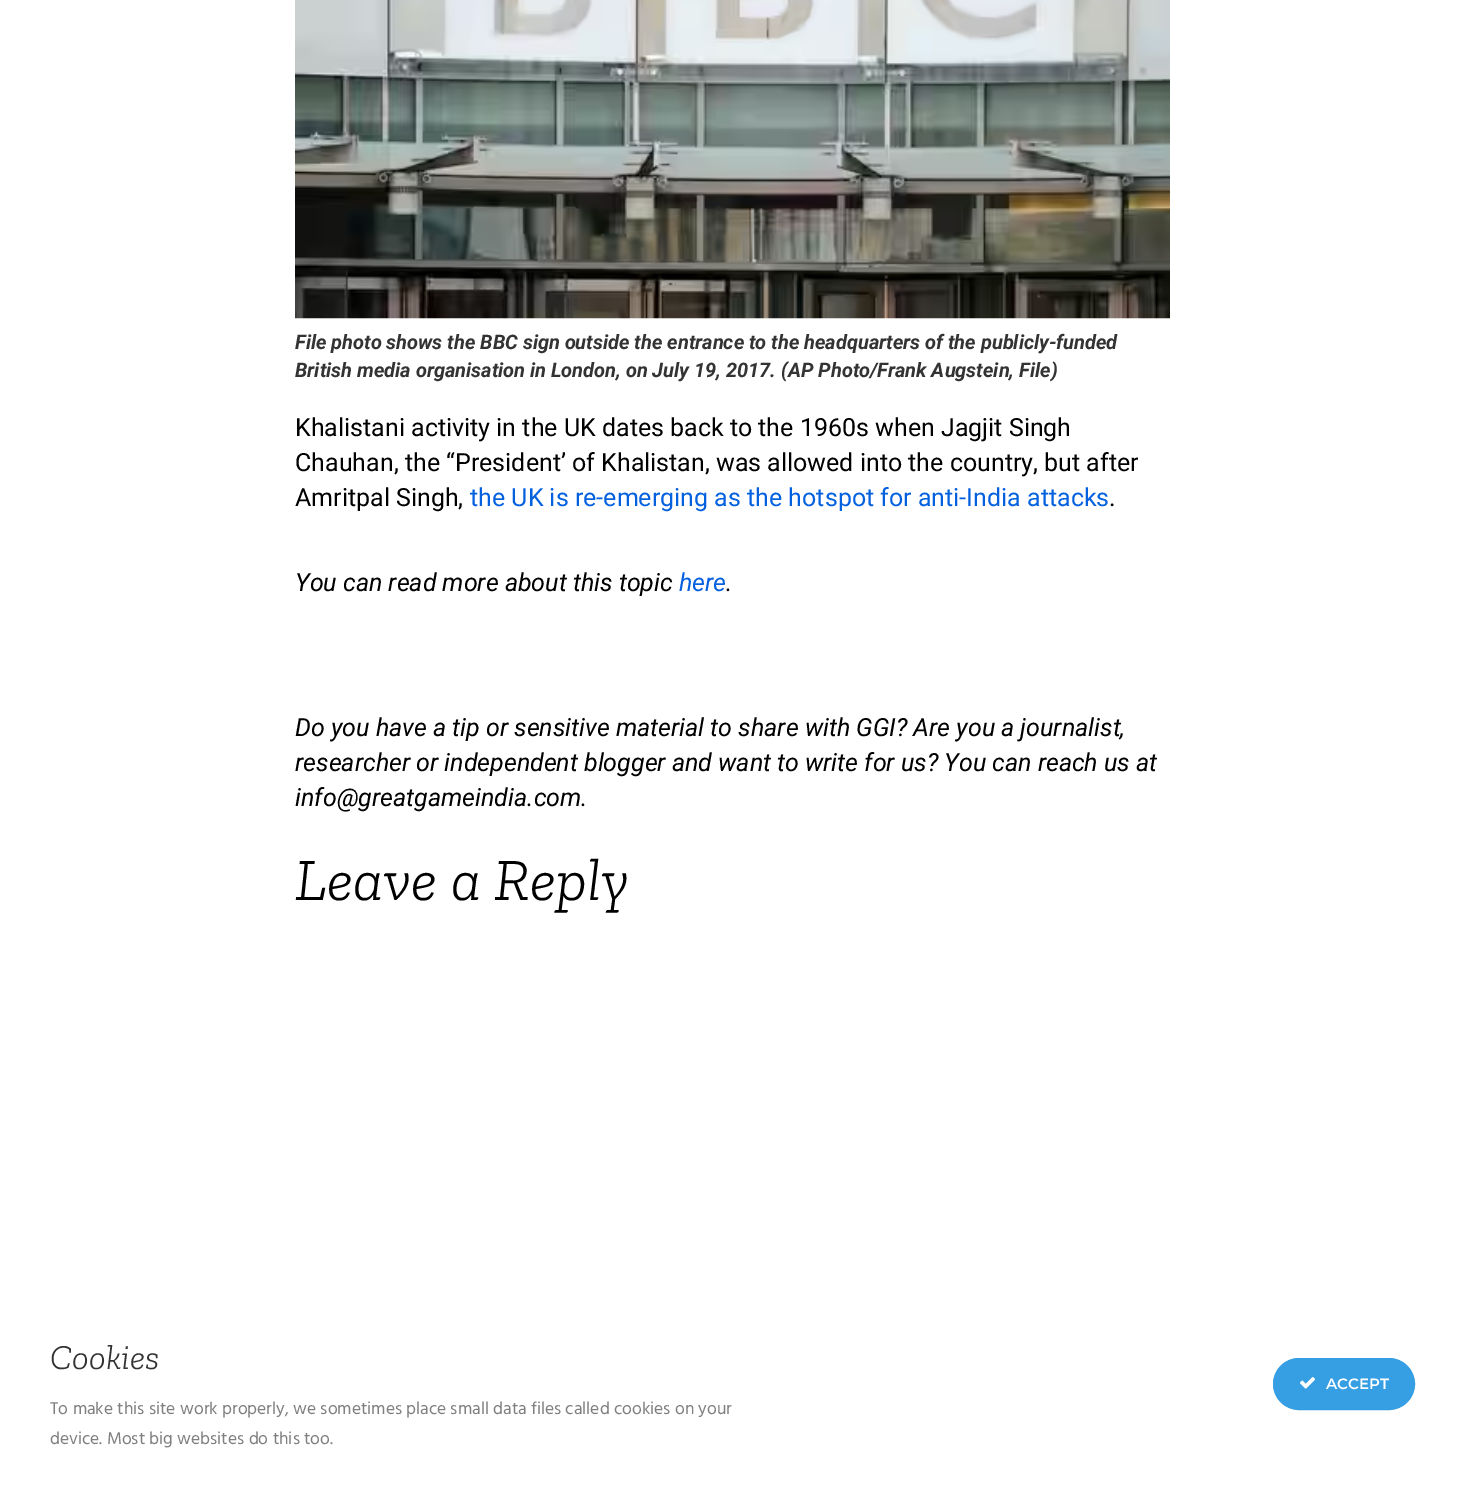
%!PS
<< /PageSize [1465 1498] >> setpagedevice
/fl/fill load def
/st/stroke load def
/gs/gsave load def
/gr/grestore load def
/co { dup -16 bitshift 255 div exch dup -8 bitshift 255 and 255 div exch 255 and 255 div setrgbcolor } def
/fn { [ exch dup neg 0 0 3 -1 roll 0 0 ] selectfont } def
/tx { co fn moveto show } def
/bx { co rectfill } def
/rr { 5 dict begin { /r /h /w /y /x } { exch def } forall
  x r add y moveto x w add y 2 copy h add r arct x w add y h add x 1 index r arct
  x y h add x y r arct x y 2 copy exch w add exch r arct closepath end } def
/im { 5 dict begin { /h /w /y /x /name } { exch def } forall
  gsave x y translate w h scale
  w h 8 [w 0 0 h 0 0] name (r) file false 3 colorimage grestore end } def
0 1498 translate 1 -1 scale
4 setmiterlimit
0 0 1465 1498 16#FFFFFF bx
(media/1.raw) 295 0 875 319 im
16#369EE3 co
1273.5 1358.5 141 51 25.5 rr gs fl gr
st
(media/2.raw) 1300 1377 15 12 im
(File photo shows the BBC sign outside the entrance to the headquarters of the publicly-funded) 295 349 /Roboto-BoldItalic 20 16#333333 tx
(British media organisation in London, on July 19, 2017. \(AP Photo/Frank Augstein, File\)) 295 377 /Roboto-BoldItalic 20 16#333333 tx
(Khalistani activity in the UK dates back to the 1960s when Jagjit Singh) 295 436 /Roboto-Regular 25 16#000000 tx
(Chauhan, the “President’ of Khalistan, was allowed into the country, but after) 295 471 /Roboto-Regular 25 16#000000 tx
(Amritpal Singh,) 295 506 /Roboto-Regular 25 16#000000 tx
(the UK is re-emerging as the hotspot for anti-India attacks) 470 506 /Roboto-Regular 25 16#0360DF tx
(.) 1109 506 /Roboto-Regular 25 16#000000 tx
(You can read more about this topic) 295 591 /Roboto-Italic 25 16#000000 tx
(here) 679 591 /Roboto-Italic 25 16#0360DF tx
(.) 726 591 /Roboto-Italic 25 16#000000 tx
(Do you have a tip or sensitive material to share with GGI? Are you a journalist,) 295 736 /Roboto-Italic 25 16#000000 tx
(researcher or independent blogger and want to write for us? You can reach us at) 295 771 /Roboto-Italic 25 16#000000 tx
(info@greatgameindia.com.) 295 806 /Roboto-Italic 25 16#000000 tx
(Leave a Reply) 295 900 /ZillaSlab-LightItalic 60 16#000000 tx
(Cookies) 50 1369 /ZillaSlab-LightItalic 35 16#333333 tx
(To make this site work properly, we sometimes place small data files called cookies on your) 50 1414 /Hind-Regular 17.5 16#808080 tx
(device. Most big websites do this too.) 50 1444 /Hind-Regular 17.5 16#808080 tx
(ACCEPT) 1326 1389 /Montserrat-SemiBold 15 16#FFFFFF tx
showpage
